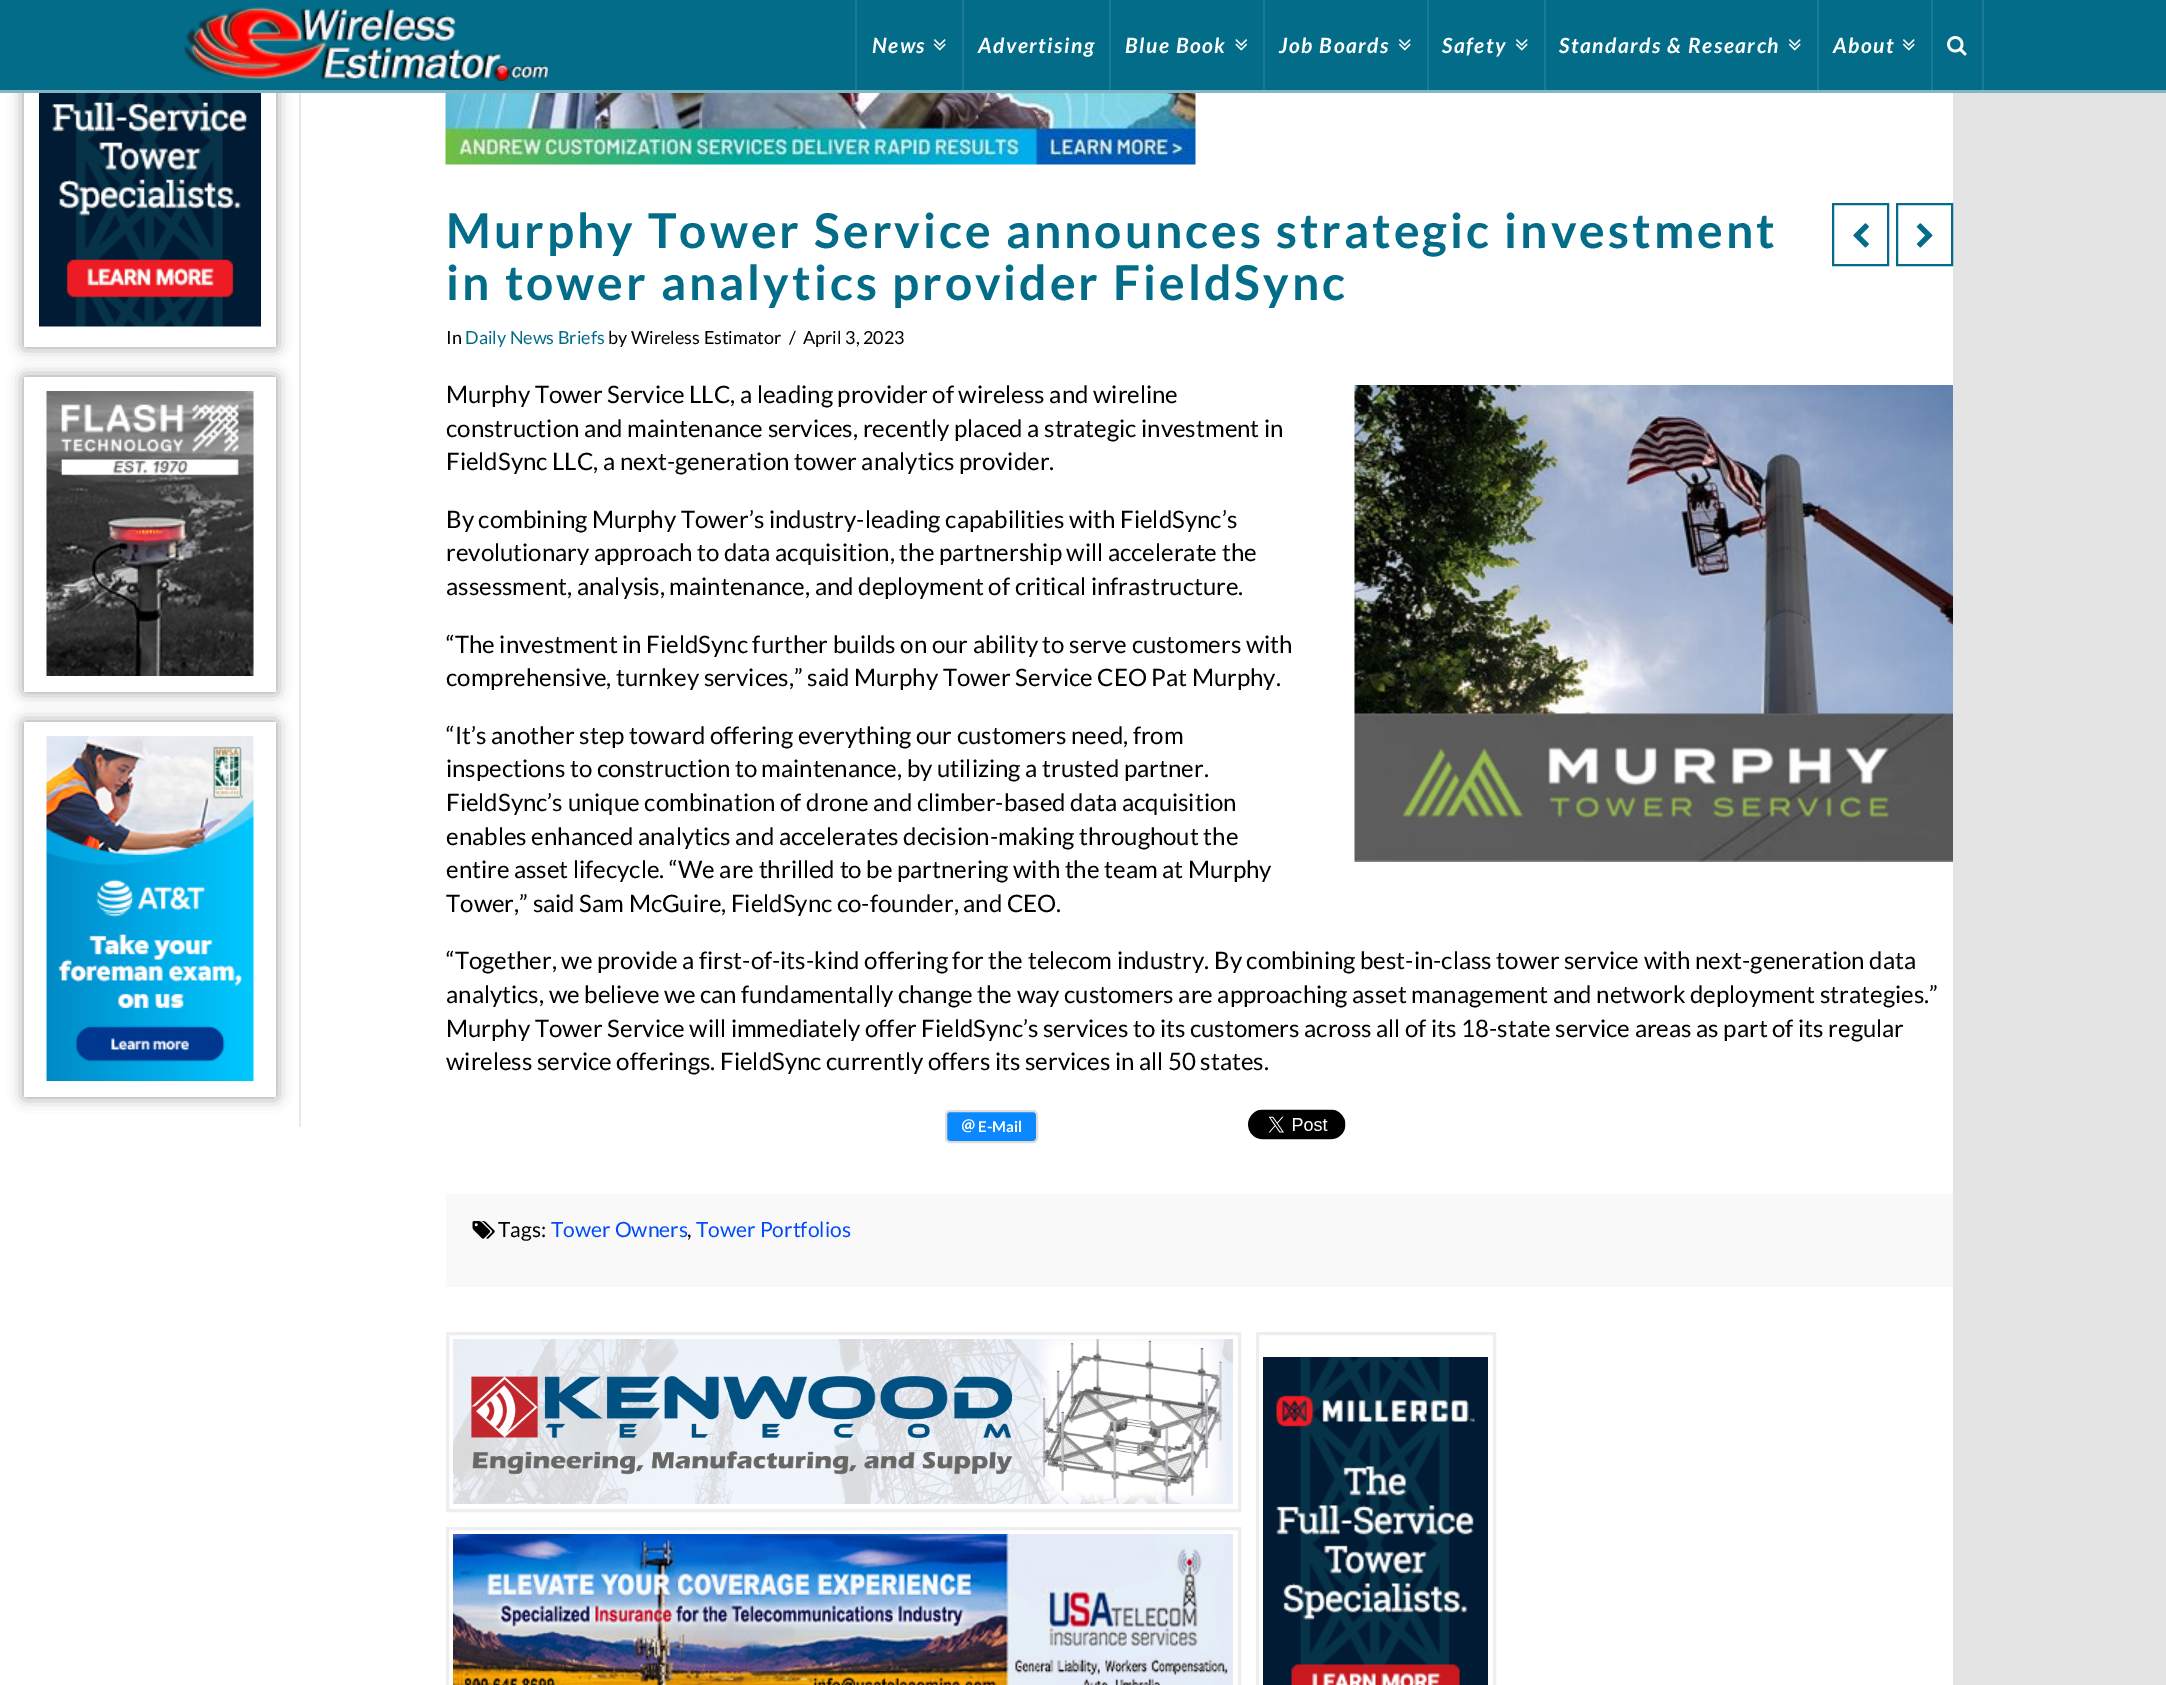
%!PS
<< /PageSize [2166 1685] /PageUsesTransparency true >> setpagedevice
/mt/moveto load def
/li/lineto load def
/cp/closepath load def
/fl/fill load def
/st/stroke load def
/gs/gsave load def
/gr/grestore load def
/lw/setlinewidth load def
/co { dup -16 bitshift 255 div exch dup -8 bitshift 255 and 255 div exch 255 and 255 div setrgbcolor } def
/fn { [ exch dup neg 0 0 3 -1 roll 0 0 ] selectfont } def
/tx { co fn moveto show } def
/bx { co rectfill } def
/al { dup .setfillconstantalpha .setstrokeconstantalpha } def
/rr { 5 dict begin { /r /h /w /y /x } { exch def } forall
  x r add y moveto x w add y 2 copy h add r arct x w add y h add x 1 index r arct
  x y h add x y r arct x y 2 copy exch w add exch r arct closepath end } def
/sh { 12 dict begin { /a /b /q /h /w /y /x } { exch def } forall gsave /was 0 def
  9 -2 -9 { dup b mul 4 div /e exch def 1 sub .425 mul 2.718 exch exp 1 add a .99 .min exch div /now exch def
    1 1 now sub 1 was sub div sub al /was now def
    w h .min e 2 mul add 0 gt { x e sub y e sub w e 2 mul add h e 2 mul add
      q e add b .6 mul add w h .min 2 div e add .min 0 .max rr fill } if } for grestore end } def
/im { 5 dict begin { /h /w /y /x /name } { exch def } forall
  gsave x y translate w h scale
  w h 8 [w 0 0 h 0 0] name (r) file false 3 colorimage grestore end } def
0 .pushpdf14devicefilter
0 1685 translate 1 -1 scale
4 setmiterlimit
0 0 2166 1685 16#E4E4E4 bx
0 93 1953 1592 16#FFFFFF bx
299 93 2 1034 16#EAEAEA bx
gs
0 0 mt 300 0 li 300 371 li 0 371 li cp 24 -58 mt 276 -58 li 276 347 li 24 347 li cp eoclip newpath
16#000000 co
24 -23 252 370 0 7.5 .4 sh
gr
(media/1.raw) 39 93 222 234 im
gs
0 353 mt 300 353 li 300 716 li 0 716 li cp 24 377 mt 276 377 li 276 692 li 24 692 li cp eoclip newpath
16#000000 co
24 377 252 315 0 7.5 .4 sh
gr
(media/2.raw) 46 391 208 285 im
gs
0 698 mt 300 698 li 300 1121 li 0 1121 li cp 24 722 mt 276 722 li 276 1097 li 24 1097 li cp eoclip newpath
16#000000 co
24 722 252 375 0 7.5 .4 sh
gr
(media/3.raw) 46 736 208 345 im
0 0 2166 90 16#026C89 bx
0 90 2166 3 16#81B6C4 bx
(media/4.raw) 183 7 365 74 im
962 0 2 90 16#1B7B95 bx
855 0 2 90 16#1B7B95 bx
(media/5.raw) 933 39 13 12 im
1109 0 2 90 16#1B7B95 bx
1263 0 2 90 16#1B7B95 bx
(media/6.raw) 1235 39 13 12 im
1427 0 2 90 16#1B7B95 bx
(media/5.raw) 1398 39 13 12 im
1544 0 2 90 16#1B7B95 bx
(media/5.raw) 1515 39 13 12 im
1817 0 2 90 16#1B7B95 bx
(media/5.raw) 1788 39 13 12 im
1931 0 2 90 16#1B7B95 bx
(media/5.raw) 1902 39 13 12 im
1982 0 2 90 16#1B7B95 bx
(media/7.raw) 1947 36 20 20 im
(media/8.raw) 445 93 751 72 im
16#026C89 co
2 lw
1833 204 55 61 rectstroke
(media/9.raw) 1853 223 16 25 im
1897 204 55 61 rectstroke
(media/10.raw) 1916 223 17 25 im
(media/11.raw) 1354 385 599 477 im
16#0A88FF co
946 1111 91 31 4 rr gs fl gr
16#DDDDDD co
st
(media/12.raw) 962 1119 13 14 im
(media/13.raw) 1248 1109 98 31 im
446 1194 1507 93 16#F9F9F9 bx
(media/14.raw) 472 1221 23 18 im
16#EEEEEE co
3 lw
447.5 1333.5 792 177 rectstroke
(media/15.raw) 453 1339 780 165 im
1257.5 1333.5 237 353 rectstroke
(media/16.raw) 1263 1357 225 328 im
447.5 1528.5 792 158 rectstroke
(media/17.raw) 453 1534 780 151 im
/Lato-BoldItalic 21 fn
16#FFFFFF co
872 53 mt 1.5 0 (News) ashow
978 53 mt 1.5 0 (Advertising) ashow
1125 53 mt 1.5 0 (Blue Book) ashow
1279 53 mt 1.5 0 (Job Boards) ashow
1442 53 mt 1.5 0 (Safety) ashow
1559 53 mt 1.5 0 (Standards & Research) ashow
1833 53 mt 1.5 0 (About) ashow
/Lato-Bold 48 fn
16#026C89 co
446 248 mt 3 0 (Murphy Tower Service announces strategic investment) ashow
446 300 mt 3 0 (in tower analytics provider FieldSync) ashow
(In) 446 344 /Lato-Regular 18 16#000000 tx
(Daily News Briefs) 465 344 /Lato-Regular 18 16#026C89 tx
(by Wireless Estimator) 608 344 /Lato-Regular 18 16#000000 tx
(/) 789 344 /Lato-Regular 18 16#000000 tx
(April 3, 2023) 803 344 /Lato-Regular 18 16#000000 tx
(Murphy Tower Service LLC, a leading provider of wireless and wireline) 446 403 /Lato-Regular 24 16#000000 tx
(construction and maintenance services, recently placed a strategic investment in) 446 437 /Lato-Regular 24 16#000000 tx
(FieldSync LLC, a next-generation tower analytics provider.) 446 470 /Lato-Regular 24 16#000000 tx
(By combining Murphy Tower’s industry-leading capabilities with FieldSync’s) 446 528 /Lato-Regular 24 16#000000 tx
(revolutionary approach to data acquisition, the partnership will accelerate the) 446 561 /Lato-Regular 24 16#000000 tx
(assessment, analysis, maintenance, and deployment of critical infrastructure.) 446 595 /Lato-Regular 24 16#000000 tx
(“The investment in FieldSync further builds on our ability to serve customers with) 446 653 /Lato-Regular 24 16#000000 tx
(comprehensive, turnkey services,” said Murphy Tower Service CEO Pat Murphy.) 446 686 /Lato-Regular 24 16#000000 tx
(“It’s another step toward offering everything our customers need, from) 446 744 /Lato-Regular 24 16#000000 tx
(inspections to construction to maintenance, by utilizing a trusted partner.) 446 777 /Lato-Regular 24 16#000000 tx
(FieldSync’s unique combination of drone and climber-based data acquisition) 446 811 /Lato-Regular 24 16#000000 tx
(enables enhanced analytics and accelerates decision-making throughout the) 446 845 /Lato-Regular 24 16#000000 tx
(entire asset lifecycle. “We are thrilled to be partnering with the team at Murphy) 446 878 /Lato-Regular 24 16#000000 tx
(Tower,” said Sam McGuire, FieldSync co-founder, and CEO.) 446 912 /Lato-Regular 24 16#000000 tx
(“Together, we provide a first-of-its-kind offering for the telecom industry. By combining best-in-class tower service with next-generation data) 446 969 /Lato-Regular 24 16#000000 tx
(analytics, we believe we can fundamentally change the way customers are approaching asset management and network deployment strategies.”) 446 1003 /Lato-Regular 24 16#000000 tx
(Murphy Tower Service will immediately offer FieldSync’s services to its customers across all of its 18-state service areas as part of its regular) 446 1037 /Lato-Regular 24 16#000000 tx
(wireless service offerings. FieldSync currently offers its services in all 50 states.) 446 1070 /Lato-Regular 24 16#000000 tx
(E-Mail) 978 1132 /Lato-Bold 15 16#FFFFFF tx
(Tags:) 498 1237 /Lato-Regular 21 16#000000 tx
(Tower Owners) 551 1237 /Lato-Regular 21 16#004AF9 tx
(,) 687 1237 /Lato-Regular 21 16#000000 tx
(Tower Portfolios) 696 1237 /Lato-Regular 21 16#004AF9 tx
.poppdf14devicefilter showpage
